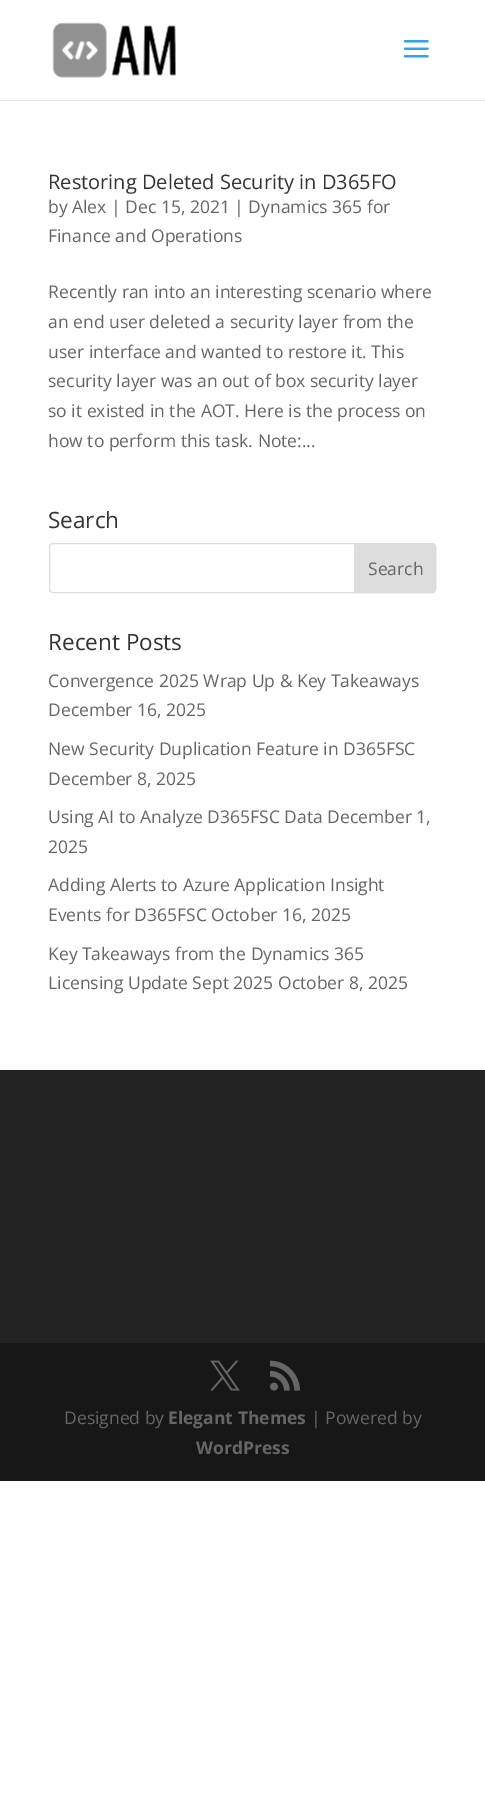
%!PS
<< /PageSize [485 1804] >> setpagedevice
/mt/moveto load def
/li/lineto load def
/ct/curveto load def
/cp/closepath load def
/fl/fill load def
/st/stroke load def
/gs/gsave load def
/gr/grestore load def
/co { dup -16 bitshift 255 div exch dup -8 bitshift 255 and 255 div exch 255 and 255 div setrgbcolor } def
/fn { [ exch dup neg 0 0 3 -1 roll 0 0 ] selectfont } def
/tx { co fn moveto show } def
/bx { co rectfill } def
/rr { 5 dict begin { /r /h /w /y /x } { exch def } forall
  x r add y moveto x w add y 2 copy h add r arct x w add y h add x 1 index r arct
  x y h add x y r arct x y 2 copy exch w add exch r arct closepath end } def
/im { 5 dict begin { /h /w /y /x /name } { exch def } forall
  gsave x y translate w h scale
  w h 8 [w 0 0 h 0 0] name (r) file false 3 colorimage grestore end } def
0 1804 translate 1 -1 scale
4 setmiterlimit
0 0 485 1804 16#FFFFFF bx
0 100 485 1 16#E6E6E6 bx
(media/1.raw) 52 22 124 56 im
(media/2.raw) 403 40 26 18 im
16#DDDDDD co
49.5 543.5 386 49 3.5 rr st
354.5 543.5 mt 432 543.5 li 434 543.5 435.5 545 435.5 547 ct 435.5 589 li 435.5 591 434 592.5 432 592.5 ct 354.5 592.5 li cp gs fl gr
st
0 1070 485 273 16#222222 bx
0 1343 485 138 16#171717 bx
(media/3.raw) 210 1360 30 31 im
(media/4.raw) 270 1360 30 31 im
(Restoring Deleted Security in D365FO) 48 189 /OpenSans-Regular 20 16#333333 tx
(by Alex | Dec 15, 2021 | Dynamics 365 for) 48 213 /OpenSans-Regular 17.5 16#666666 tx
(Finance and Operations) 48 242 /OpenSans-Regular 17.5 16#666666 tx
(Recently ran into an interesting scenario where) 48 298 /OpenSans-Regular 17.5 16#666666 tx
(an end user deleted a security layer from the) 48 328 /OpenSans-Regular 17.5 16#666666 tx
(user interface and wanted to restore it. This) 48 358 /OpenSans-Regular 17.5 16#666666 tx
(security layer was an out of box security layer) 48 387 /OpenSans-Regular 17.5 16#666666 tx
(so it existed in the AOT. Here is the process on) 48 417 /OpenSans-Regular 17.5 16#666666 tx
(how to perform this task. Note:...) 48 447 /OpenSans-Regular 17.5 16#666666 tx
(Search) 48 528 /OpenSans-Regular 22.5 16#333333 tx
(Search) 368 575 /OpenSans-Regular 17.5 16#666666 tx
(Recent Posts) 48 650 /OpenSans-Regular 22.5 16#333333 tx
(Convergence 2025 Wrap Up & Key Takeaways) 48 687 /OpenSans-Regular 17.5 16#666666 tx
(December 16, 2025) 48 716 /OpenSans-Regular 17.5 16#666666 tx
(New Security Duplication Feature in D365FSC) 48 755 /OpenSans-Regular 17.5 16#666666 tx
(December 8, 2025) 48 785 /OpenSans-Regular 17.5 16#666666 tx
(Using AI to Analyze D365FSC Data December 1,) 48 823 /OpenSans-Regular 17.5 16#666666 tx
(2025) 48 853 /OpenSans-Regular 17.5 16#666666 tx
(Adding Alerts to Azure Application Insight) 48 891 /OpenSans-Regular 17.5 16#666666 tx
(Events for D365FSC October 16, 2025) 48 921 /OpenSans-Regular 17.5 16#666666 tx
(Key Takeaways from the Dynamics 365) 48 960 /OpenSans-Regular 17.5 16#666666 tx
(Licensing Update Sept 2025 October 8, 2025) 48 989 /OpenSans-Regular 17.5 16#666666 tx
(Designed by) 64 1424 /OpenSans-Regular 17.5 16#666666 tx
(Elegant Themes) 168 1424 /OpenSans-Bold 17.5 16#666666 tx
(| Powered by) 311 1424 /OpenSans-Regular 17.5 16#666666 tx
(WordPress) 196 1454 /OpenSans-Bold 17.5 16#666666 tx
showpage
